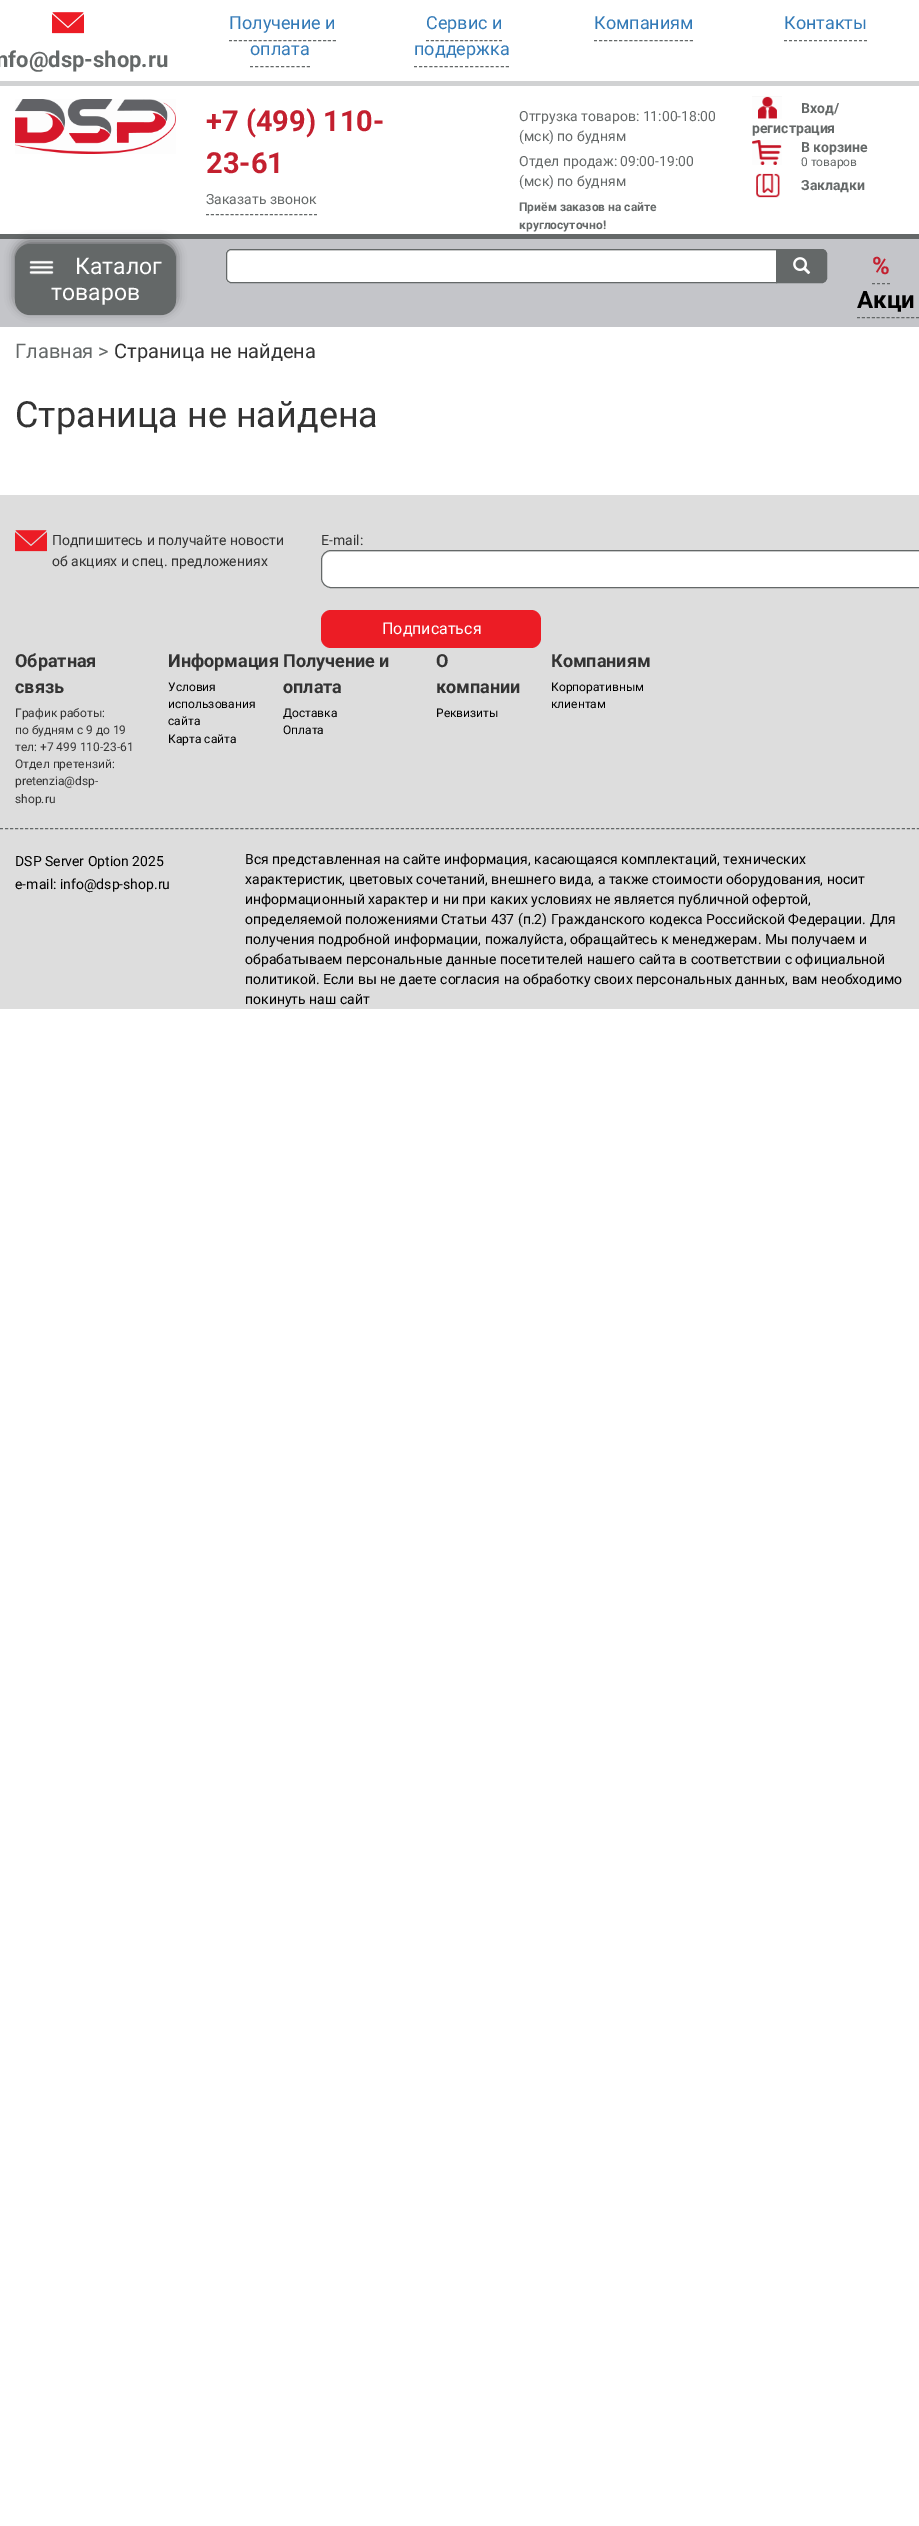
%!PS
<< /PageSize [919 2526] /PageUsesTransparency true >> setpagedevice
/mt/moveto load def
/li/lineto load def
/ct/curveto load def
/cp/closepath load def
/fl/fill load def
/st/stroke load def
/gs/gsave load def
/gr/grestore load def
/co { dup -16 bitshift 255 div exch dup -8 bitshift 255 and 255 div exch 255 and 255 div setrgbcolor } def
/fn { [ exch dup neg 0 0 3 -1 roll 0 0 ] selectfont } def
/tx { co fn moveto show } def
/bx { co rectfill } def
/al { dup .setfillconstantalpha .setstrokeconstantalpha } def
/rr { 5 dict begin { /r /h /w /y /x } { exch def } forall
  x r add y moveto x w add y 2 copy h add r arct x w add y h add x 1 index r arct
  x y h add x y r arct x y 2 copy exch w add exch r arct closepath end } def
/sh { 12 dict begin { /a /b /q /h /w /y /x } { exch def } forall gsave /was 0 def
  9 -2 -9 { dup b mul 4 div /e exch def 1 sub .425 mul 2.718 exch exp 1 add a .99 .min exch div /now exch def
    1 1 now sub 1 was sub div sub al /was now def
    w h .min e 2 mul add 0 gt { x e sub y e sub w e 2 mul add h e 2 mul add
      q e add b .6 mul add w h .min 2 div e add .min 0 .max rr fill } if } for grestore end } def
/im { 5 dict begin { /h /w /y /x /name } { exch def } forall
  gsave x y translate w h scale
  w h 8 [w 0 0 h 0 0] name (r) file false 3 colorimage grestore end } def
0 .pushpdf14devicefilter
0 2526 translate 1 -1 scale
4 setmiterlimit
0 0 919 2526 16#FFFFFF bx
(media/1.raw) 52 12 32 22 im
16#646868 co
[3 1.95] 0 setdash
229 40.5 mt 336 40.5 li st
[3 2.18] 0 setdash
250 66.5 mt 310 66.5 li st
[3 1.87] 0 setdash
426 40.5 mt 502 40.5 li st
[3 2.11] 0 setdash
414 66.5 mt 509 66.5 li st
[3 2.05] 0 setdash
594 40.5 mt 693 40.5 li st
[3 2] 0 setdash
784 40.5 mt 867 40.5 li st
0 81 919 5 16#D1D2D3 bx
0 234 919 5 16#646868 bx
(media/2.raw) 15 99 161 55 im
[3 1.91] 0 setdash
206 214.5 mt 317 214.5 li st
(media/3.raw) 752 96 30 23 im
(media/4.raw) 752 140 30 25 im
(media/5.raw) 756 173 24 25 im
0 239 919 88 16#C4C5C9 bx
16#000000 co
15 241 161 71 15 5 .5 sh
16#646868 co
15 244 161 71 15 rr fl
(media/6.raw) 29 260 25 15 im
16#FFFFFF co
231 249 mt 777 249 li 777 283 li 231 283 li 228 283 226 281 226 278 ct 226 254 li 226 251 228 249 231 249 ct cp fl
16#ECECEC co
231 251 mt 776 251 li 776 250 li 231 250 li 228 250 227 252 227 255 ct 227 253 229 251 231 251 ct cp fl
16#646868 co
[] 0 setdash
231 249.5 mt 776.5 249.5 li 776.5 282.5 li 231 282.5 li 228.5 282.5 226.5 280.5 226.5 278 ct 226.5 254 li 226.5 251.5 228.5 249.5 231 249.5 ct cp st
776.5 249.5 mt 822 249.5 li 824.5 249.5 826.5 251.5 826.5 254 ct 826.5 278 li 826.5 280.5 824.5 282.5 822 282.5 ct 776.5 282.5 li cp gs fl gr
st
(media/7.raw) 793 257 18 18 im
[3 2] 0 setdash
872 283.5 mt 890 283.5 li st
[3 1.93] 0 setdash
857 317.5 mt 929 317.5 li st
0 495 919 514 16#DDDDDD bx
(media/8.raw) 15 530 32 22 im
16#FFFFFF co
321 550 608 38 10 rr fl
16#ECECEC co
331 552 mt 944 552 li 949 552 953 556 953 561 ct 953 556 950 551 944 551 ct 331 551 li 325 551 322 556 322 561 ct 322 556 326 552 331 552 ct cp fl
16#646868 co
[] 0 setdash
321.5 550.5 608 37 9.5 rr st
16#EC1C25 co
321 610 220 38 10 rr fl
16#646868 co
[3 2.01] 0 setdash
0 828.5 mt 919 828.5 li st
(nfo@dsp-shop.ru) -4 67 /Roboto-Bold 22 16#646868 tx
(Получение и) 229 29 /Roboto-Regular 18 16#337AB7 tx
(оплата) 250 55 /Roboto-Regular 18 16#337AB7 tx
(Сервис и) 426 29 /Roboto-Regular 18 16#337AB7 tx
(поддержка) 414 55 /Roboto-Regular 18 16#337AB7 tx
(Компаниям) 594 29 /Roboto-Regular 18 16#337AB7 tx
(Контакты) 784 29 /Roboto-Regular 18 16#337AB7 tx
(+7 \(499\) 110-) 206 131 /Roboto-Bold 29 16#C3202F tx
(23-61) 206 173 /Roboto-Bold 29 16#C3202F tx
(Заказать звонок) 206 204 /Roboto-Regular 14 16#646868 tx
(Отгрузка товаров: 11:00-18:00) 519 121 /Roboto-Regular 14 16#646868 tx
(\(мск\) по будням) 519 141 /Roboto-Regular 14 16#646868 tx
(Отдел продаж: 09:00-19:00) 519 166 /Roboto-Regular 14 16#646868 tx
(\(мск\) по будням) 519 186 /Roboto-Regular 14 16#646868 tx
(Приём заказов на сайте) 519 211 /Roboto-Bold 12 16#646868 tx
(круглосуточно!) 519 229 /Roboto-Bold 12 16#646868 tx
(Вход/) 801 113 /Roboto-Bold 14 16#646868 tx
(регистрация) 752 133 /Roboto-Bold 14 16#646868 tx
(В корзине) 801 152 /Roboto-Bold 14 16#646868 tx
(0 товаров) 801 166 /Roboto-Regular 12 16#646868 tx
(Закладки) 801 190 /Roboto-Bold 14 16#646868 tx
(Каталог) 75 274 /Roboto-Regular 23 16#FFFFFF tx
(товаров) 51 300 /Roboto-Regular 23 16#FFFFFF tx
(%) 872 274 /Roboto-Bold 24 16#C3202F tx
(Акци) 857 308 /Roboto-Bold 24 16#000000 tx
(Главная >) 15 358 /Roboto-Regular 20 16#646868 tx
(Страница не найдена) 114 358 /Roboto-Regular 20 16#333333 tx
(Страница не найдена) 15 427 /Roboto-Regular 36 16#333333 tx
(Подпишитесь и получайте новости) 52 545 /Roboto-Regular 14 16#333333 tx
(об акциях и спец. предложениях) 52 566 /Roboto-Regular 14 16#333333 tx
(E-mail:) 321 545 /Roboto-Regular 14 16#333333 tx
(Подписаться) 382 634 /Roboto-Regular 16 16#FFFFFF tx
(Обратная) 15 667 /Roboto-Bold 18 16#333333 tx
(связь) 15 693 /Roboto-Bold 18 16#333333 tx
(График работы:) 15 717 /Roboto-Regular 12 16#333333 tx
(по будням с 9 до 19) 15 734 /Roboto-Regular 12 16#333333 tx
(тел: +7 499 110-23-61) 15 751 /Roboto-Regular 12 16#333333 tx
(Отдел претензий:) 15 768 /Roboto-Regular 12 16#333333 tx
(pretenzia@dsp-) 15 785 /Roboto-Regular 12 16#333333 tx
(shop.ru) 15 803 /Roboto-Regular 12 16#333333 tx
(Информация) 168 667 /Roboto-Bold 18 16#333333 tx
(Условия) 168 691 /Roboto-Regular 12 16#000000 tx
(использования) 168 708 /Roboto-Regular 12 16#000000 tx
(сайта) 168 725 /Roboto-Regular 12 16#000000 tx
(Карта сайта) 168 743 /Roboto-Regular 12 16#000000 tx
(Получение и) 283 667 /Roboto-Bold 18 16#333333 tx
(оплата) 283 693 /Roboto-Bold 18 16#333333 tx
(Доставка) 283 717 /Roboto-Regular 12 16#000000 tx
(Оплата) 283 734 /Roboto-Regular 12 16#000000 tx
(О) 436 667 /Roboto-Bold 18 16#333333 tx
(компании) 436 693 /Roboto-Bold 18 16#333333 tx
(Реквизиты) 436 717 /Roboto-Regular 12 16#000000 tx
(Компаниям) 551 667 /Roboto-Bold 18 16#333333 tx
(Корпоративным) 551 691 /Roboto-Regular 12 16#000000 tx
(клиентам) 551 708 /Roboto-Regular 12 16#000000 tx
(DSP Server Option 2025) 15 866 /Roboto-Regular 14 16#000000 tx
(e-mail: info@dsp-shop.ru) 15 889 /Roboto-Regular 14 16#000000 tx
(Вся представленная на сайте информация, касающаяся комплектаций, технических) 245 864 /Roboto-Regular 14 16#000000 tx
(характеристик, цветовых сочетаний, внешнего вида, а также стоимости оборудования, носит) 245 884 /Roboto-Regular 14 16#000000 tx
(информационный характер и ни при каких условиях не является публичной офертой,) 245 904 /Roboto-Regular 14 16#000000 tx
(определяемой положениями Статьи 437 \(п.2\) Гражданского кодекса Российской Федерации. Для) 245 924 /Roboto-Regular 14 16#000000 tx
(получения подробной информации, пожалуйста, обращайтесь к менеджерам. Мы получаем и) 245 944 /Roboto-Regular 14 16#000000 tx
(обрабатываем персональные данные посетителей нашего сайта в соответствии с официальной) 245 964 /Roboto-Regular 14 16#000000 tx
(политикой. Если вы не даете согласия на обработку своих персональных данных, вам необходимо) 245 984 /Roboto-Regular 14 16#000000 tx
(покинуть наш сайт) 245 1004 /Roboto-Regular 14 16#000000 tx
.poppdf14devicefilter showpage
